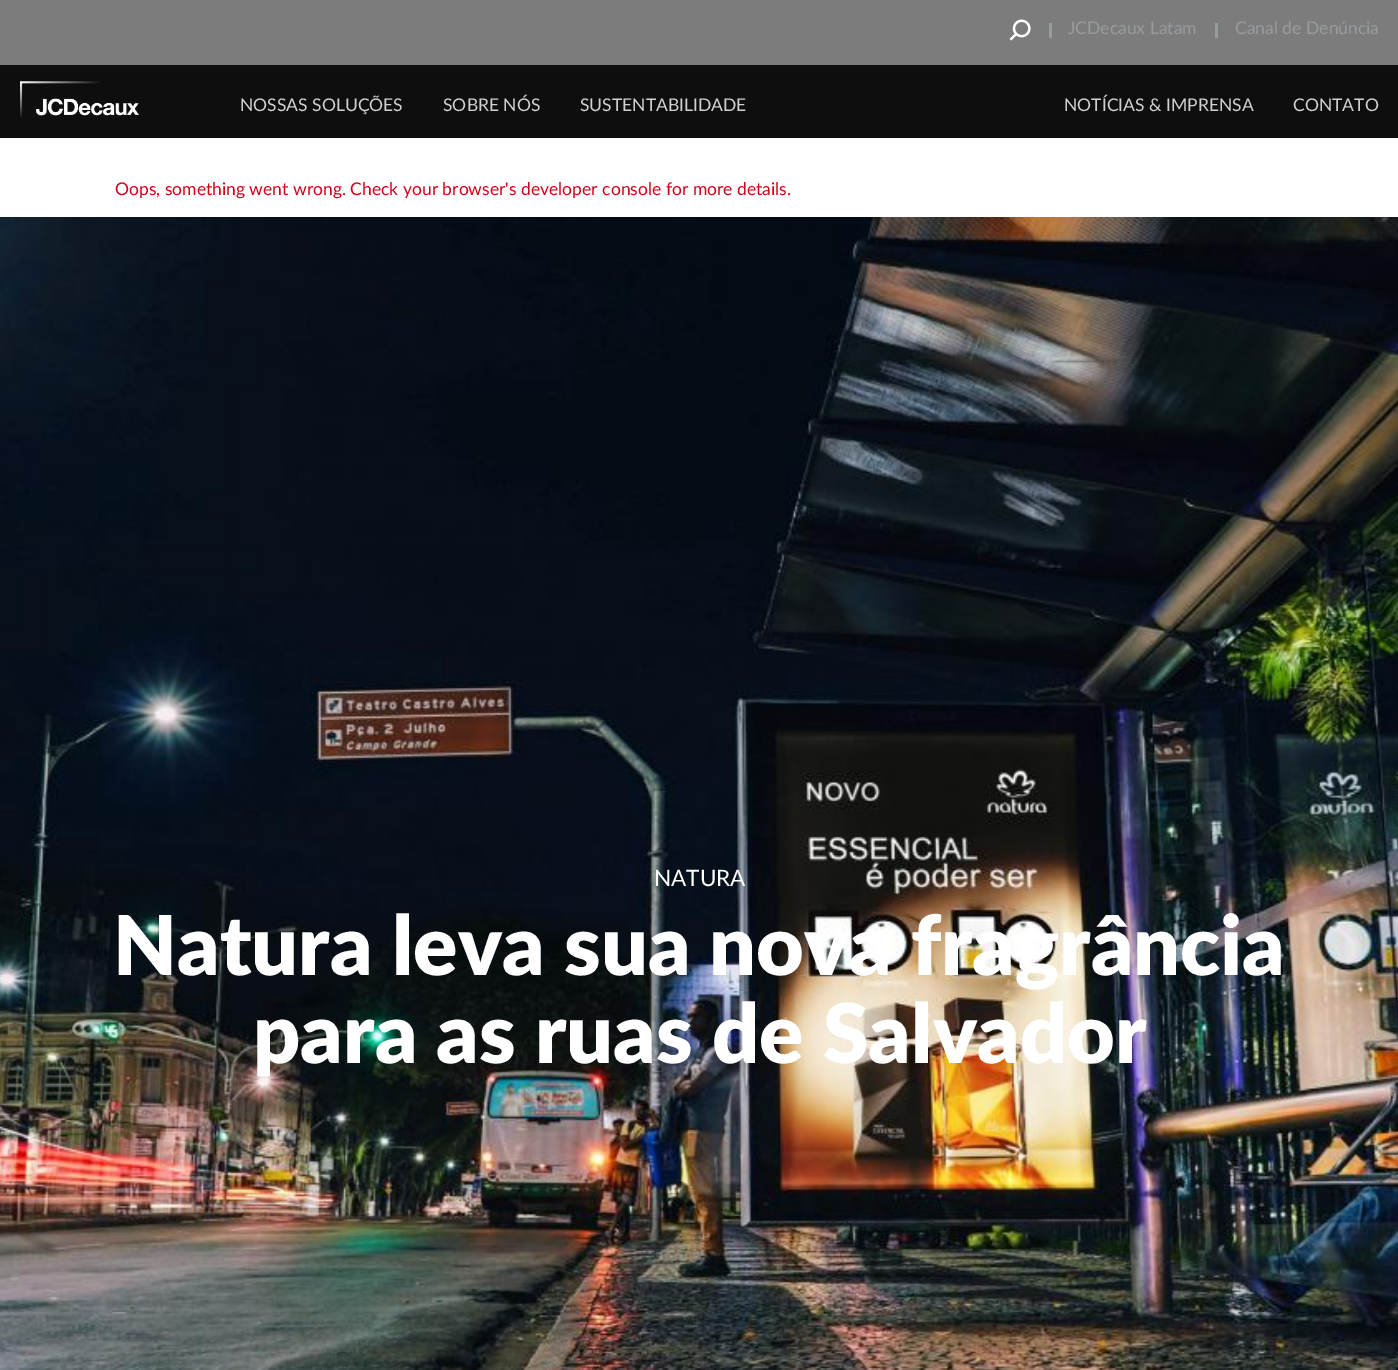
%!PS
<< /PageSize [1398 1370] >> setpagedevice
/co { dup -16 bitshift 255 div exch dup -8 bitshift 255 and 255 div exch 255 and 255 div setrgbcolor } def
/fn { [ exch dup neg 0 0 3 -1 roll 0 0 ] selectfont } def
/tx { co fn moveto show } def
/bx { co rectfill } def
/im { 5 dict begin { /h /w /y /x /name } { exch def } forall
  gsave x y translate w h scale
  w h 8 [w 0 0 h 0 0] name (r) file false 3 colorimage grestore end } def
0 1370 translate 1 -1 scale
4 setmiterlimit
0 0 1398 1370 16#FFFFFF bx
0 0 1398 65 16#7C7C7C bx
(media/1.raw) 1009 19 22 22 im
1049 23 3 15 16#979C9F bx
1215 23 3 15 16#979C9F bx
0 65 1398 73 16#0E0E0E bx
(media/2.raw) 20 81 119 37 im
(media/3.raw) 0 217 1398 1153 im
(JCDecaux Latam) 1068 34 /Lato-Regular 17.5 16#979C9F tx
(Canal de Denúncia) 1235 34 /Lato-Regular 17.5 16#979C9F tx
(NOSSAS SOLUÇÕES) 240 111 /Lato-Regular 17.5 16#D0D1D1 tx
(SOBRE NÓS) 443 111 /Lato-Regular 17.5 16#D0D1D1 tx
(SUSTENTABILIDADE) 580 111 /Lato-Regular 17.5 16#D0D1D1 tx
(NOTÍCIAS & IMPRENSA) 1064 111 /Lato-Regular 17.5 16#D0D1D1 tx
(CONTATO) 1293 111 /Lato-Regular 17.5 16#D0D1D1 tx
(Oops, something went wrong. Check your browser's developer console for more details.) 115 195 /Lato-Regular 17.5 16#D0021B tx
(NATURA) 654 886 /Lato-Regular 22.5 16#FFFFFF tx
(Natura leva sua nova fragrância) 113 975 /Lato-Black 82.5 16#FFFFFF tx
(para as ruas de Salvador) 253 1063 /Lato-Black 82.5 16#FFFFFF tx
showpage
